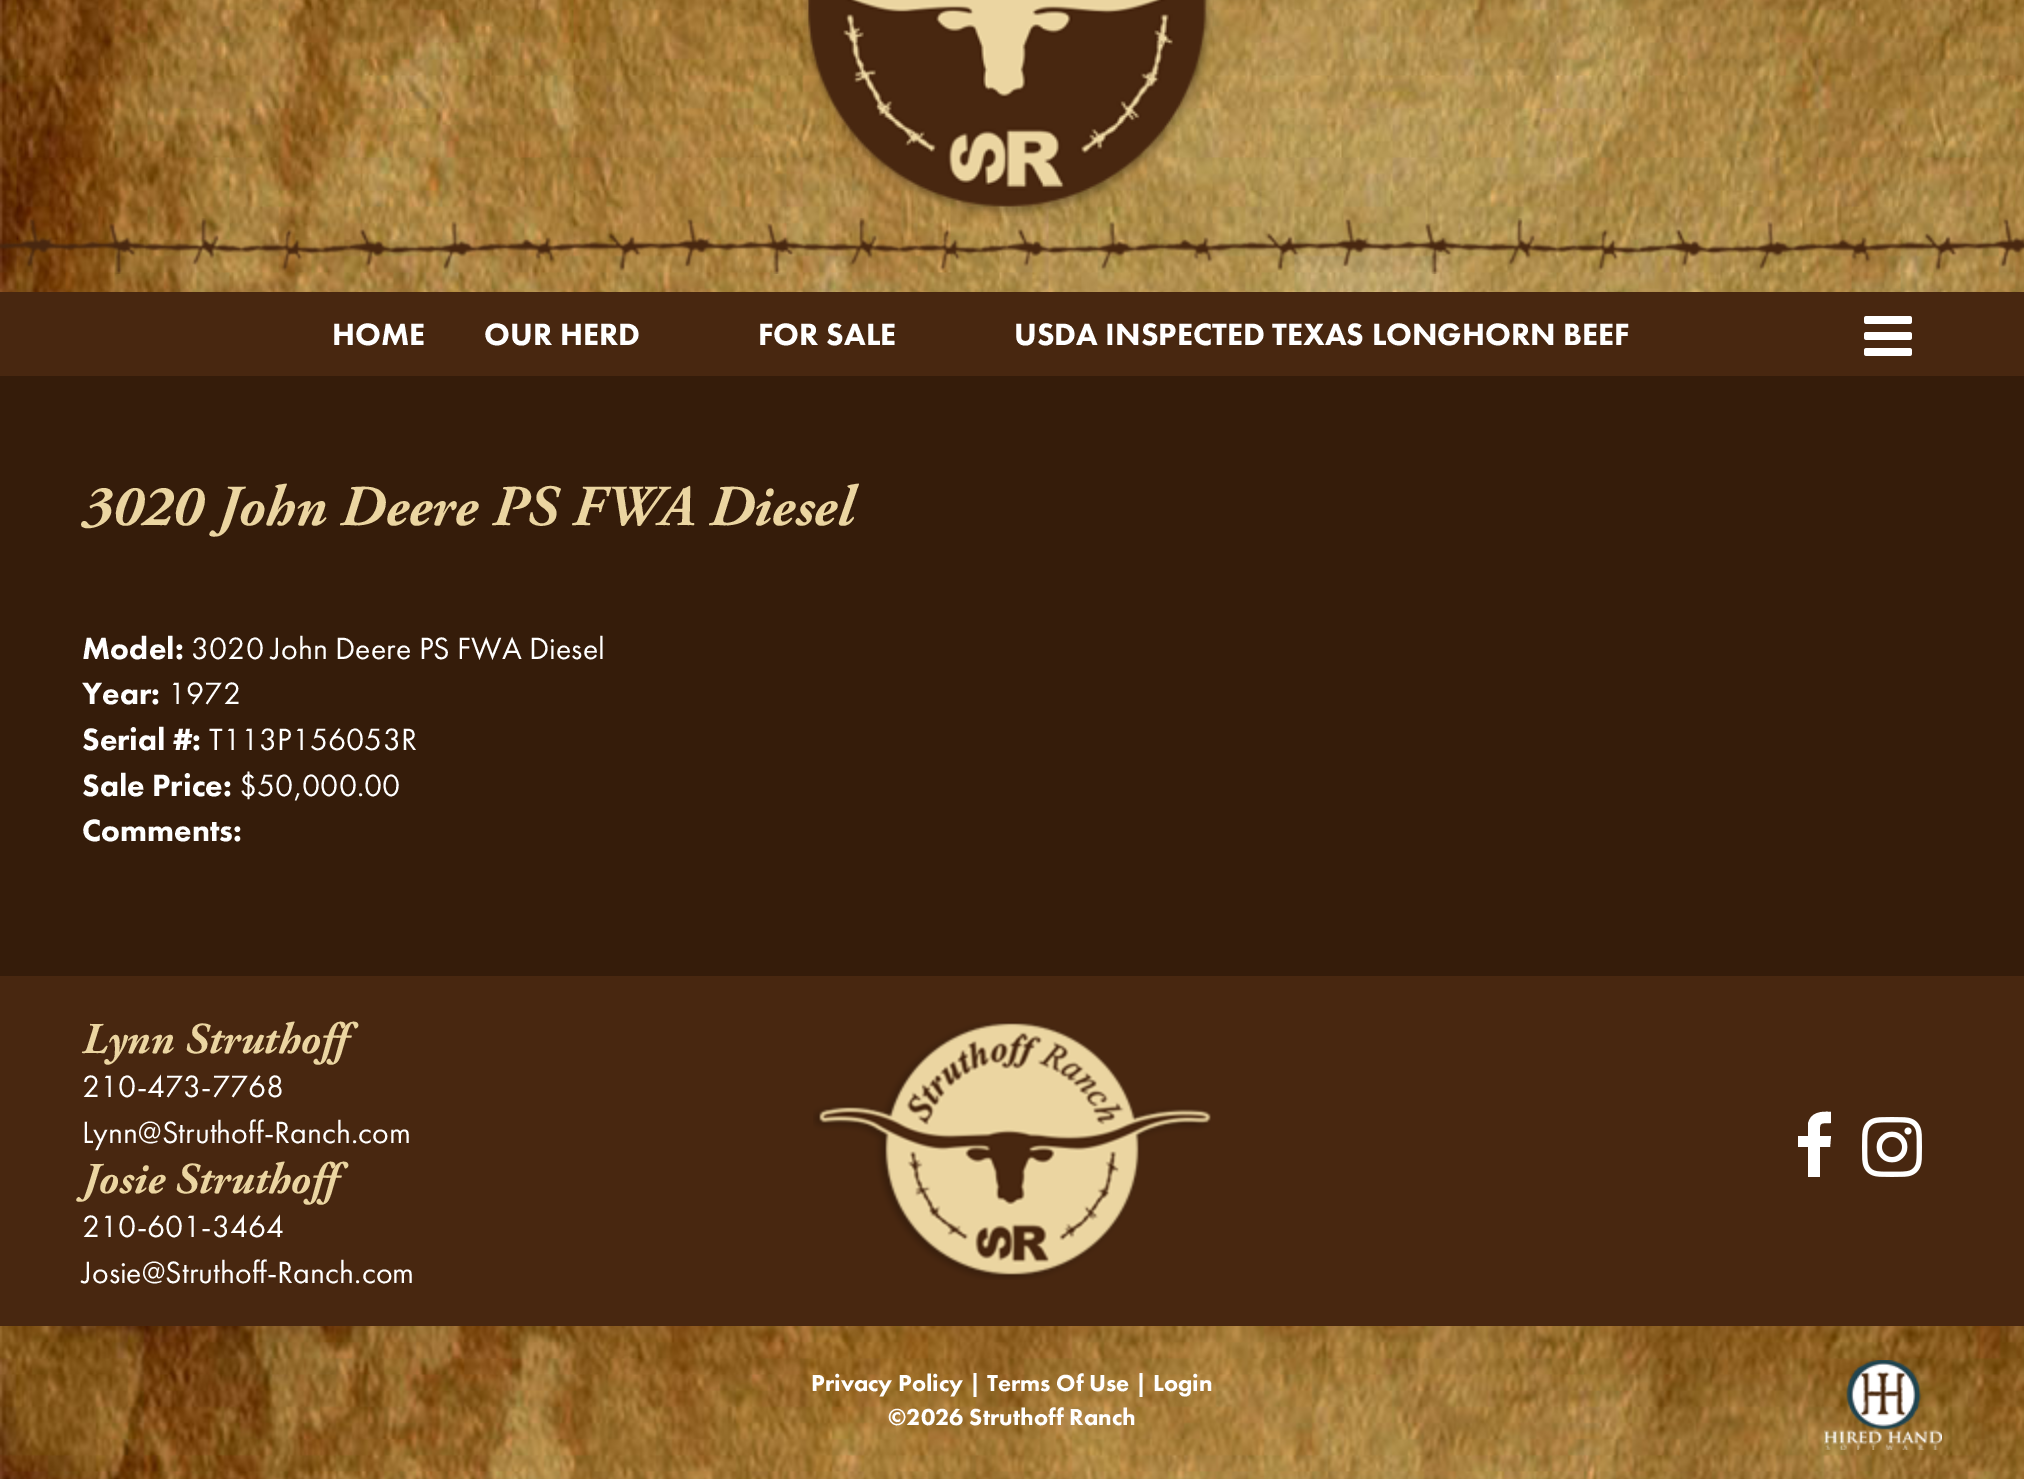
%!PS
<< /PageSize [2024 1479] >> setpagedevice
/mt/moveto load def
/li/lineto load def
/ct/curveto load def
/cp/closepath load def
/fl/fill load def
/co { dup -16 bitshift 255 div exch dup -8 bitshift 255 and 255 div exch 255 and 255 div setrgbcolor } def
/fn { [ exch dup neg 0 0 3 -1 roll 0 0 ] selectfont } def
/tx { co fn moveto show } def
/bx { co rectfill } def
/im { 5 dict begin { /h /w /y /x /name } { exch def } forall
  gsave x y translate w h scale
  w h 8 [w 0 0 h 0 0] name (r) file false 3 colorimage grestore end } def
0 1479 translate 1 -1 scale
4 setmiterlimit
0 0 2024 1479 16#351C0A bx
(media/1.raw) 0 0 2024 292 im
(media/2.raw) 804 0 410 216 im
(media/3.raw) 0 218 2024 56 im
0 292 2024 84 16#482710 bx
(media/4.raw) 1864 316 48 40 im
0 976 2024 350 16#482710 bx
(media/5.raw) 813 1022 398 258 im
16#FFFFFF co
1831 1112 mt 1831 1123 li 1818 1123 1820 1123 1820 1136 ct 1831 1136 li 1830 1147 li 1820 1147 li 1820 1177 li 1808 1177 li 1808 1147 li 1798 1147 li 1798 1136 li 1808 1136 li 1808 1124 li 1810 1112 1822 1111 1831 1112 ct cp fl
(media/6.raw) 1862 1117 60 60 im
(media/7.raw) 0 1326 2024 153 im
(media/8.raw) 1824 1360 118 90 im
(HOME) 332 345 /FuturaPT-Black 32 16#FFFFFF tx
(OUR HERD) 484 345 /FuturaPT-Black 32 16#FFFFFF tx
(FOR SALE) 758 345 /FuturaPT-Black 32 16#FFFFFF tx
(USDA INSPECTED TEXAS LONGHORN BEEF) 1014 345 /FuturaPT-Black 32 16#FFFFFF tx
(3020 John Deere PS FWA Diesel) 82 525 /AdobeGaramond-BoldItalic 58 16#EBD5A1 tx
(Model:) 82 659 /FuturaPT-Black 32 16#FFFFFF tx
(3020 John Deere PS FWA Diesel) 191 659 /FuturaPT-Regular 32 16#FFFFFF tx
(Year:) 82 704 /FuturaPT-Black 32 16#FFFFFF tx
(1972) 168 704 /FuturaPT-Regular 32 16#FFFFFF tx
(Serial #:) 82 750 /FuturaPT-Black 32 16#FFFFFF tx
(T113P156053R) 209 750 /FuturaPT-Regular 32 16#FFFFFF tx
(Sale Price:) 82 796 /FuturaPT-Black 32 16#FFFFFF tx
($50,000.00) 239 796 /FuturaPT-Regular 32 16#FFFFFF tx
(Comments:) 82 841 /FuturaPT-Black 32 16#FFFFFF tx
(Lynn Struthoff) 82 1053 /AdobeGaramond-BoldItalic 44 16#EBD5A1 tx
(210-473-7768) 82 1097 /FuturaPT-Regular 32 16#FFFFFF tx
(Lynn@Struthoff-Ranch.com) 82 1143 /FuturaPT-Regular 32 16#FFFFFF tx
(Josie Struthoff) 82 1193 /AdobeGaramond-BoldItalic 44 16#EBD5A1 tx
(210-601-3464) 82 1237 /FuturaPT-Regular 32 16#FFFFFF tx
(Josie@Struthoff-Ranch.com) 82 1283 /FuturaPT-Regular 32 16#FFFFFF tx
(Privacy Policy | Terms Of Use | Login) 811 1391 /FuturaPT-Black 24 16#FFFFFF tx
(©2026 Struthoff Ranch) 888 1425 /FuturaPT-Black 24 16#FFFFFF tx
showpage
